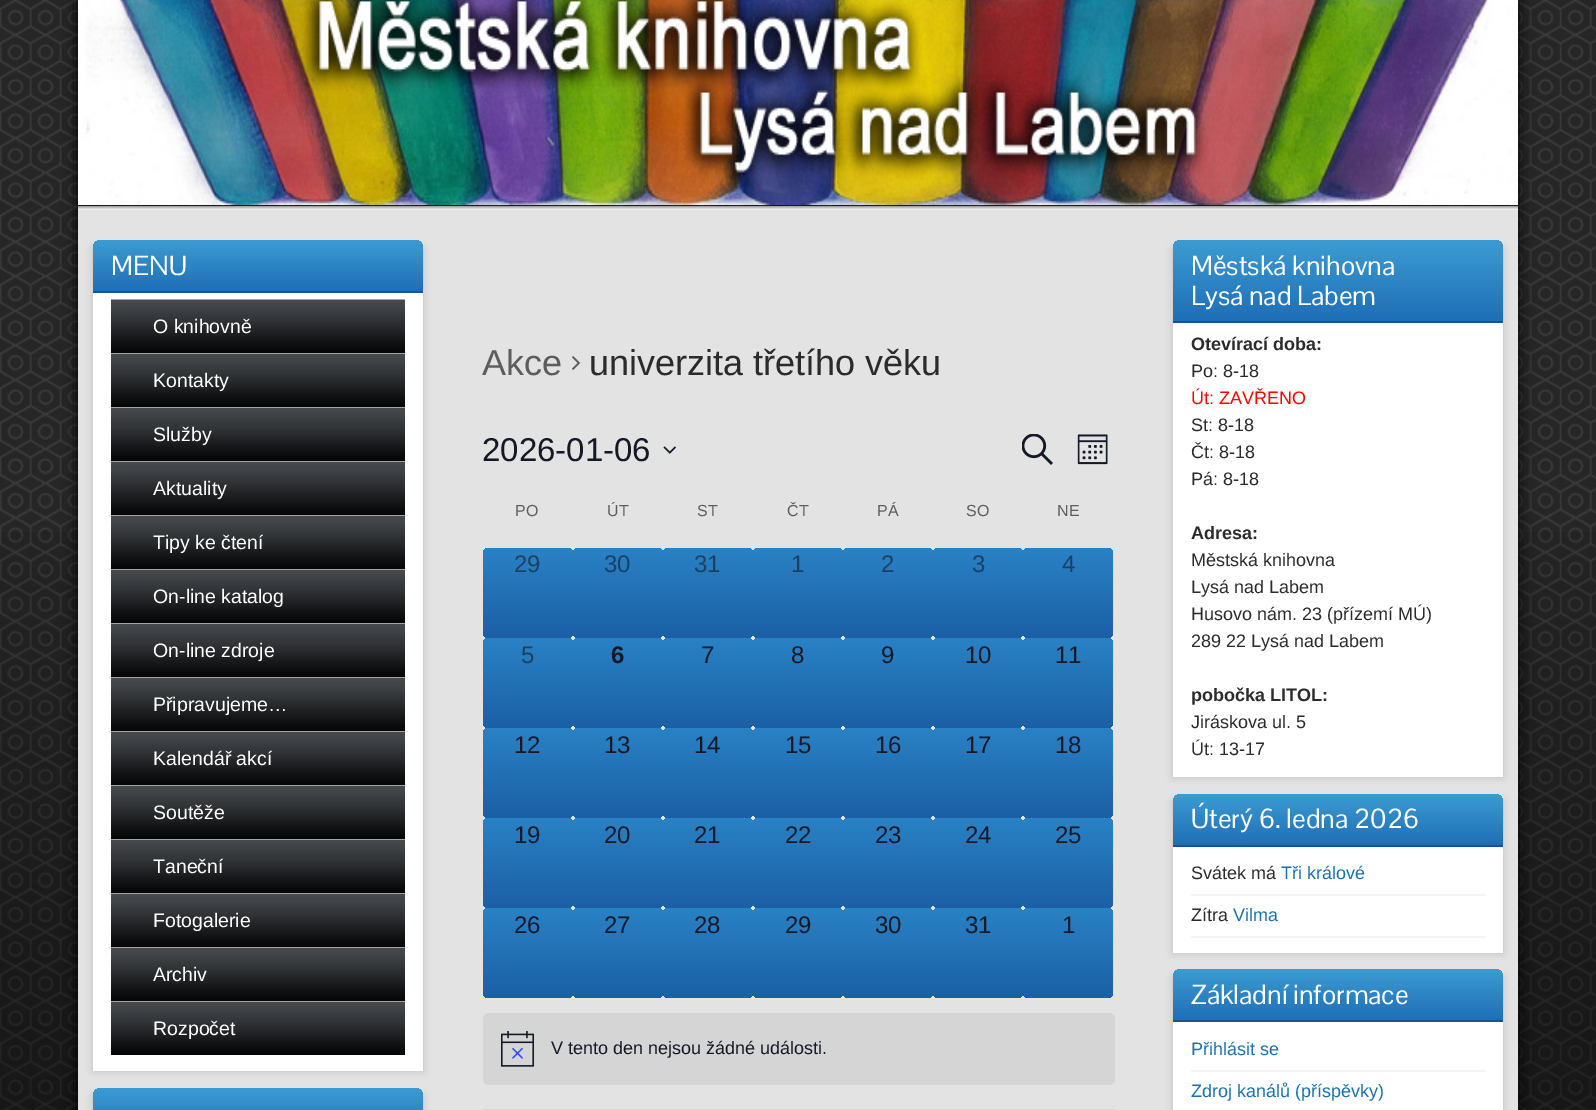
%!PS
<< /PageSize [1596 1110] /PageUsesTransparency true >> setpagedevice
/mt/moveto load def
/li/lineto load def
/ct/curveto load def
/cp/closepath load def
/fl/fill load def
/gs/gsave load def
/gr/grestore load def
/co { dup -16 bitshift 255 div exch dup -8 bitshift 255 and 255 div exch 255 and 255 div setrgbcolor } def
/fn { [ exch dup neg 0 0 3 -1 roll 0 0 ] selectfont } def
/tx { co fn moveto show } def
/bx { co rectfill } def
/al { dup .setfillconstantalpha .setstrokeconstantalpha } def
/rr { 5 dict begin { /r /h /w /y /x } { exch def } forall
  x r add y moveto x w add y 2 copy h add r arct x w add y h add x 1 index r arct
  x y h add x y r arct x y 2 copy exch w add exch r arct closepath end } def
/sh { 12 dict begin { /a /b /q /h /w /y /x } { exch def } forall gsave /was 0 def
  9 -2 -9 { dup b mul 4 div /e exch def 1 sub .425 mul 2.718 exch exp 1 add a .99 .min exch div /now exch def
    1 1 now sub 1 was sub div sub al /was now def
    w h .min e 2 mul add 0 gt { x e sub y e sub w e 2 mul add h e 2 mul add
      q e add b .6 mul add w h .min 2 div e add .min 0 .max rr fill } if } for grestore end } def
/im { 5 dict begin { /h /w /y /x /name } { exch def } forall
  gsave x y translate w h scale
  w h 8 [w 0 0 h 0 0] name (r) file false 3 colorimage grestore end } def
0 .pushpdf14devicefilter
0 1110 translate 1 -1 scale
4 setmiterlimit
0 0 1596 1110 16#FFFFFF bx
(media/1.raw) 0 0 1596 1110 im
(media/2.raw) 0 532 1596 578 im
16#000000 co
78 -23 1440 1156 0 7.5 1 sh
(media/3.raw) 78 0 1440 205 im
78 206 1440 4 16#EEEEEE bx
(media/4.raw) 78 205 1440 4 im
78 210 1440 900 16#E3E3E3 bx
16#000000 co
93 248 330 823 0 4 .15 sh
93 293 330 778 16#FFFFFF bx
gs 101 240 mt 415 240 li 419.5 240 423 243.5 423 248 ct 423 291 li 93 291 li 93 248 li 93 243.5 96.5 240 101 240 ct cp clip newpath
<< /ShadingType 2 /ColorSpace /DeviceRGB /Coords [258 240 258 291] /Extend [true true] /Function << /FunctionType 2 /Domain [0 1] /C0 [.235 .612 .824] /C1 [.122 .431 .714] /N 1 >> >> shfill gr
93 291 330 2 16#195392 bx
(media/5.raw) 111 299 294 54 im
(media/5.raw) 111 353 294 54 im
(media/5.raw) 111 407 294 54 im
(media/5.raw) 111 461 294 54 im
(media/5.raw) 111 515 294 54 im
(media/5.raw) 111 569 294 54 im
(media/5.raw) 111 623 294 54 im
(media/5.raw) 111 677 294 54 im
(media/5.raw) 111 731 294 54 im
(media/5.raw) 111 785 294 54 im
(media/5.raw) 111 839 294 54 im
(media/5.raw) 111 893 294 54 im
(media/5.raw) 111 947 294 54 im
(media/5.raw) 111 1001 294 54 im
16#000000 co
93 1095 330 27 0 4 .15 sh
gs 101 1088 mt 415 1088 li 419.5 1088 423 1091.5 423 1096 ct 423 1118 li 93 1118 li 93 1096 li 93 1091.5 96.5 1088 101 1088 ct cp clip newpath
<< /ShadingType 2 /ColorSpace /DeviceRGB /Coords [258 1088 258 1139] /Extend [true true] /Function << /FunctionType 2 /Domain [0 1] /C0 [.235 .612 .824] /C1 [.122 .431 .714] /N 1 >> >> shfill gr
(media/6.raw) 572 356 9 14 im
(media/7.raw) 663 446 13 8 im
(media/8.raw) 1022 434 31 31 im
(media/9.raw) 1077 434 31 31 im
gs
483 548 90 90 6 rr clip newpath
483 549 90 90 0 1.5 .3 sh
gr
gs 483 548 90 90 6 rr clip newpath
<< /ShadingType 2 /ColorSpace /DeviceRGB /Coords [528 548 528 638] /Extend [true true] /Function << /FunctionType 2 /Domain [0 1] /C0 [.161 .51 .773] /C1 [.11 .373 .647] /N 1 >> >> shfill gr
gs
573 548 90 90 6 rr clip newpath
573 549 90 90 0 1.5 .3 sh
gr
gs 573 548 90 90 6 rr clip newpath
<< /ShadingType 2 /ColorSpace /DeviceRGB /Coords [618 548 618 638] /Extend [true true] /Function << /FunctionType 2 /Domain [0 1] /C0 [.161 .51 .773] /C1 [.11 .373 .647] /N 1 >> >> shfill gr
gs
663 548 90 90 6 rr clip newpath
663 549 90 90 0 1.5 .3 sh
gr
gs 663 548 90 90 6 rr clip newpath
<< /ShadingType 2 /ColorSpace /DeviceRGB /Coords [708 548 708 638] /Extend [true true] /Function << /FunctionType 2 /Domain [0 1] /C0 [.161 .51 .773] /C1 [.11 .373 .647] /N 1 >> >> shfill gr
gs
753 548 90 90 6 rr clip newpath
753 549 90 90 0 1.5 .3 sh
gr
gs 753 548 90 90 6 rr clip newpath
<< /ShadingType 2 /ColorSpace /DeviceRGB /Coords [798 548 798 638] /Extend [true true] /Function << /FunctionType 2 /Domain [0 1] /C0 [.161 .51 .773] /C1 [.11 .373 .647] /N 1 >> >> shfill gr
gs
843 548 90 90 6 rr clip newpath
843 549 90 90 0 1.5 .3 sh
gr
gs 843 548 90 90 6 rr clip newpath
<< /ShadingType 2 /ColorSpace /DeviceRGB /Coords [888 548 888 638] /Extend [true true] /Function << /FunctionType 2 /Domain [0 1] /C0 [.161 .51 .773] /C1 [.11 .373 .647] /N 1 >> >> shfill gr
gs
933 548 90 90 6 rr clip newpath
933 549 90 90 0 1.5 .3 sh
gr
gs 933 548 90 90 6 rr clip newpath
<< /ShadingType 2 /ColorSpace /DeviceRGB /Coords [978 548 978 638] /Extend [true true] /Function << /FunctionType 2 /Domain [0 1] /C0 [.161 .51 .773] /C1 [.11 .373 .647] /N 1 >> >> shfill gr
gs
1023 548 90 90 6 rr clip newpath
1023 549 90 90 0 1.5 .3 sh
gr
gs 1023 548 90 90 6 rr clip newpath
<< /ShadingType 2 /ColorSpace /DeviceRGB /Coords [1068 548 1068 638] /Extend [true true] /Function << /FunctionType 2 /Domain [0 1] /C0 [.161 .51 .773] /C1 [.11 .373 .647] /N 1 >> >> shfill gr
gs
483 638 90 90 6 rr clip newpath
483 639 90 90 0 1.5 .3 sh
gr
gs 483 638 90 90 6 rr clip newpath
<< /ShadingType 2 /ColorSpace /DeviceRGB /Coords [528 638 528 728] /Extend [true true] /Function << /FunctionType 2 /Domain [0 1] /C0 [.161 .51 .773] /C1 [.11 .373 .647] /N 1 >> >> shfill gr
gs
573 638 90 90 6 rr clip newpath
573 639 90 90 0 1.5 .3 sh
gr
gs 573 638 90 90 6 rr clip newpath
<< /ShadingType 2 /ColorSpace /DeviceRGB /Coords [618 638 618 728] /Extend [true true] /Function << /FunctionType 2 /Domain [0 1] /C0 [.161 .51 .773] /C1 [.11 .373 .647] /N 1 >> >> shfill gr
gs
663 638 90 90 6 rr clip newpath
663 639 90 90 0 1.5 .3 sh
gr
gs 663 638 90 90 6 rr clip newpath
<< /ShadingType 2 /ColorSpace /DeviceRGB /Coords [708 638 708 728] /Extend [true true] /Function << /FunctionType 2 /Domain [0 1] /C0 [.161 .51 .773] /C1 [.11 .373 .647] /N 1 >> >> shfill gr
gs
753 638 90 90 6 rr clip newpath
753 639 90 90 0 1.5 .3 sh
gr
gs 753 638 90 90 6 rr clip newpath
<< /ShadingType 2 /ColorSpace /DeviceRGB /Coords [798 638 798 728] /Extend [true true] /Function << /FunctionType 2 /Domain [0 1] /C0 [.161 .51 .773] /C1 [.11 .373 .647] /N 1 >> >> shfill gr
gs
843 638 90 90 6 rr clip newpath
843 639 90 90 0 1.5 .3 sh
gr
gs 843 638 90 90 6 rr clip newpath
<< /ShadingType 2 /ColorSpace /DeviceRGB /Coords [888 638 888 728] /Extend [true true] /Function << /FunctionType 2 /Domain [0 1] /C0 [.161 .51 .773] /C1 [.11 .373 .647] /N 1 >> >> shfill gr
gs
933 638 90 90 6 rr clip newpath
933 639 90 90 0 1.5 .3 sh
gr
gs 933 638 90 90 6 rr clip newpath
<< /ShadingType 2 /ColorSpace /DeviceRGB /Coords [978 638 978 728] /Extend [true true] /Function << /FunctionType 2 /Domain [0 1] /C0 [.161 .51 .773] /C1 [.11 .373 .647] /N 1 >> >> shfill gr
gs
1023 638 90 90 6 rr clip newpath
1023 639 90 90 0 1.5 .3 sh
gr
gs 1023 638 90 90 6 rr clip newpath
<< /ShadingType 2 /ColorSpace /DeviceRGB /Coords [1068 638 1068 728] /Extend [true true] /Function << /FunctionType 2 /Domain [0 1] /C0 [.161 .51 .773] /C1 [.11 .373 .647] /N 1 >> >> shfill gr
gs
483 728 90 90 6 rr clip newpath
483 729 90 90 0 1.5 .3 sh
gr
gs 483 728 90 90 6 rr clip newpath
<< /ShadingType 2 /ColorSpace /DeviceRGB /Coords [528 728 528 818] /Extend [true true] /Function << /FunctionType 2 /Domain [0 1] /C0 [.161 .51 .773] /C1 [.11 .373 .647] /N 1 >> >> shfill gr
gs
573 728 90 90 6 rr clip newpath
573 729 90 90 0 1.5 .3 sh
gr
gs 573 728 90 90 6 rr clip newpath
<< /ShadingType 2 /ColorSpace /DeviceRGB /Coords [618 728 618 818] /Extend [true true] /Function << /FunctionType 2 /Domain [0 1] /C0 [.161 .51 .773] /C1 [.11 .373 .647] /N 1 >> >> shfill gr
gs
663 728 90 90 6 rr clip newpath
663 729 90 90 0 1.5 .3 sh
gr
gs 663 728 90 90 6 rr clip newpath
<< /ShadingType 2 /ColorSpace /DeviceRGB /Coords [708 728 708 818] /Extend [true true] /Function << /FunctionType 2 /Domain [0 1] /C0 [.161 .51 .773] /C1 [.11 .373 .647] /N 1 >> >> shfill gr
gs
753 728 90 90 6 rr clip newpath
753 729 90 90 0 1.5 .3 sh
gr
gs 753 728 90 90 6 rr clip newpath
<< /ShadingType 2 /ColorSpace /DeviceRGB /Coords [798 728 798 818] /Extend [true true] /Function << /FunctionType 2 /Domain [0 1] /C0 [.161 .51 .773] /C1 [.11 .373 .647] /N 1 >> >> shfill gr
gs
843 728 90 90 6 rr clip newpath
843 729 90 90 0 1.5 .3 sh
gr
gs 843 728 90 90 6 rr clip newpath
<< /ShadingType 2 /ColorSpace /DeviceRGB /Coords [888 728 888 818] /Extend [true true] /Function << /FunctionType 2 /Domain [0 1] /C0 [.161 .51 .773] /C1 [.11 .373 .647] /N 1 >> >> shfill gr
gs
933 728 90 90 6 rr clip newpath
933 729 90 90 0 1.5 .3 sh
gr
gs 933 728 90 90 6 rr clip newpath
<< /ShadingType 2 /ColorSpace /DeviceRGB /Coords [978 728 978 818] /Extend [true true] /Function << /FunctionType 2 /Domain [0 1] /C0 [.161 .51 .773] /C1 [.11 .373 .647] /N 1 >> >> shfill gr
gs
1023 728 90 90 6 rr clip newpath
1023 729 90 90 0 1.5 .3 sh
gr
gs 1023 728 90 90 6 rr clip newpath
<< /ShadingType 2 /ColorSpace /DeviceRGB /Coords [1068 728 1068 818] /Extend [true true] /Function << /FunctionType 2 /Domain [0 1] /C0 [.161 .51 .773] /C1 [.11 .373 .647] /N 1 >> >> shfill gr
gs
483 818 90 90 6 rr clip newpath
483 819 90 90 0 1.5 .3 sh
gr
gs 483 818 90 90 6 rr clip newpath
<< /ShadingType 2 /ColorSpace /DeviceRGB /Coords [528 818 528 908] /Extend [true true] /Function << /FunctionType 2 /Domain [0 1] /C0 [.161 .51 .773] /C1 [.11 .373 .647] /N 1 >> >> shfill gr
gs
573 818 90 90 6 rr clip newpath
573 819 90 90 0 1.5 .3 sh
gr
gs 573 818 90 90 6 rr clip newpath
<< /ShadingType 2 /ColorSpace /DeviceRGB /Coords [618 818 618 908] /Extend [true true] /Function << /FunctionType 2 /Domain [0 1] /C0 [.161 .51 .773] /C1 [.11 .373 .647] /N 1 >> >> shfill gr
gs
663 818 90 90 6 rr clip newpath
663 819 90 90 0 1.5 .3 sh
gr
gs 663 818 90 90 6 rr clip newpath
<< /ShadingType 2 /ColorSpace /DeviceRGB /Coords [708 818 708 908] /Extend [true true] /Function << /FunctionType 2 /Domain [0 1] /C0 [.161 .51 .773] /C1 [.11 .373 .647] /N 1 >> >> shfill gr
gs
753 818 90 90 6 rr clip newpath
753 819 90 90 0 1.5 .3 sh
gr
gs 753 818 90 90 6 rr clip newpath
<< /ShadingType 2 /ColorSpace /DeviceRGB /Coords [798 818 798 908] /Extend [true true] /Function << /FunctionType 2 /Domain [0 1] /C0 [.161 .51 .773] /C1 [.11 .373 .647] /N 1 >> >> shfill gr
gs
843 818 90 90 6 rr clip newpath
843 819 90 90 0 1.5 .3 sh
gr
gs 843 818 90 90 6 rr clip newpath
<< /ShadingType 2 /ColorSpace /DeviceRGB /Coords [888 818 888 908] /Extend [true true] /Function << /FunctionType 2 /Domain [0 1] /C0 [.161 .51 .773] /C1 [.11 .373 .647] /N 1 >> >> shfill gr
gs
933 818 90 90 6 rr clip newpath
933 819 90 90 0 1.5 .3 sh
gr
gs 933 818 90 90 6 rr clip newpath
<< /ShadingType 2 /ColorSpace /DeviceRGB /Coords [978 818 978 908] /Extend [true true] /Function << /FunctionType 2 /Domain [0 1] /C0 [.161 .51 .773] /C1 [.11 .373 .647] /N 1 >> >> shfill gr
gs
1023 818 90 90 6 rr clip newpath
1023 819 90 90 0 1.5 .3 sh
gr
gs 1023 818 90 90 6 rr clip newpath
<< /ShadingType 2 /ColorSpace /DeviceRGB /Coords [1068 818 1068 908] /Extend [true true] /Function << /FunctionType 2 /Domain [0 1] /C0 [.161 .51 .773] /C1 [.11 .373 .647] /N 1 >> >> shfill gr
gs
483 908 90 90 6 rr clip newpath
483 909 90 90 0 1.5 .3 sh
gr
gs 483 908 90 90 6 rr clip newpath
<< /ShadingType 2 /ColorSpace /DeviceRGB /Coords [528 908 528 998] /Extend [true true] /Function << /FunctionType 2 /Domain [0 1] /C0 [.161 .51 .773] /C1 [.11 .373 .647] /N 1 >> >> shfill gr
gs
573 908 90 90 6 rr clip newpath
573 909 90 90 0 1.5 .3 sh
gr
gs 573 908 90 90 6 rr clip newpath
<< /ShadingType 2 /ColorSpace /DeviceRGB /Coords [618 908 618 998] /Extend [true true] /Function << /FunctionType 2 /Domain [0 1] /C0 [.161 .51 .773] /C1 [.11 .373 .647] /N 1 >> >> shfill gr
gs
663 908 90 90 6 rr clip newpath
663 909 90 90 0 1.5 .3 sh
gr
gs 663 908 90 90 6 rr clip newpath
<< /ShadingType 2 /ColorSpace /DeviceRGB /Coords [708 908 708 998] /Extend [true true] /Function << /FunctionType 2 /Domain [0 1] /C0 [.161 .51 .773] /C1 [.11 .373 .647] /N 1 >> >> shfill gr
gs
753 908 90 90 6 rr clip newpath
753 909 90 90 0 1.5 .3 sh
gr
gs 753 908 90 90 6 rr clip newpath
<< /ShadingType 2 /ColorSpace /DeviceRGB /Coords [798 908 798 998] /Extend [true true] /Function << /FunctionType 2 /Domain [0 1] /C0 [.161 .51 .773] /C1 [.11 .373 .647] /N 1 >> >> shfill gr
gs
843 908 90 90 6 rr clip newpath
843 909 90 90 0 1.5 .3 sh
gr
gs 843 908 90 90 6 rr clip newpath
<< /ShadingType 2 /ColorSpace /DeviceRGB /Coords [888 908 888 998] /Extend [true true] /Function << /FunctionType 2 /Domain [0 1] /C0 [.161 .51 .773] /C1 [.11 .373 .647] /N 1 >> >> shfill gr
gs
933 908 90 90 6 rr clip newpath
933 909 90 90 0 1.5 .3 sh
gr
gs 933 908 90 90 6 rr clip newpath
<< /ShadingType 2 /ColorSpace /DeviceRGB /Coords [978 908 978 998] /Extend [true true] /Function << /FunctionType 2 /Domain [0 1] /C0 [.161 .51 .773] /C1 [.11 .373 .647] /N 1 >> >> shfill gr
gs
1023 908 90 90 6 rr clip newpath
1023 909 90 90 0 1.5 .3 sh
gr
gs 1023 908 90 90 6 rr clip newpath
<< /ShadingType 2 /ColorSpace /DeviceRGB /Coords [1068 908 1068 998] /Extend [true true] /Function << /FunctionType 2 /Domain [0 1] /C0 [.161 .51 .773] /C1 [.11 .373 .647] /N 1 >> >> shfill gr
16#D5D5D6 co
483 1013 632 72 6 rr fl
(media/10.raw) 501 1031 33 36 im
483 1109 632 1 16#D5D5D5 bx
16#000000 co
1173 248 330 529 0 4 .15 sh
1173 323 330 454 16#FFFFFF bx
gs 1181 240 mt 1495 240 li 1499.5 240 1503 243.5 1503 248 ct 1503 321 li 1173 321 li 1173 248 li 1173 243.5 1176.5 240 1181 240 ct cp clip newpath
<< /ShadingType 2 /ColorSpace /DeviceRGB /Coords [1338 240 1338 321] /Extend [true true] /Function << /FunctionType 2 /Domain [0 1] /C0 [.235 .612 .824] /C1 [.122 .431 .714] /N 1 >> >> shfill gr
1173 321 330 2 16#195392 bx
16#000000 co
1173 801 330 152 0 4 .15 sh
1173 801 330 152 16#FFFFFF bx
gs 1181 794 mt 1495 794 li 1499.5 794 1503 797.5 1503 802 ct 1503 845 li 1173 845 li 1173 802 li 1173 797.5 1176.5 794 1181 794 ct cp clip newpath
<< /ShadingType 2 /ColorSpace /DeviceRGB /Coords [1338 794 1338 845] /Extend [true true] /Function << /FunctionType 2 /Domain [0 1] /C0 [.235 .612 .824] /C1 [.122 .431 .714] /N 1 >> >> shfill gr
1173 845 330 2 16#195392 bx
1191 894 294 2 16#F5F5F5 bx
1191 936 294 2 16#F5F5F5 bx
16#000000 co
1173 977 330 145 0 4 .15 sh
1173 1022 330 88 16#FFFFFF bx
gs 1181 969 mt 1495 969 li 1499.5 969 1503 972.5 1503 977 ct 1503 1020 li 1173 1020 li 1173 977 li 1173 972.5 1176.5 969 1181 969 ct cp clip newpath
<< /ShadingType 2 /ColorSpace /DeviceRGB /Coords [1338 969 1338 1020] /Extend [true true] /Function << /FunctionType 2 /Domain [0 1] /C0 [.235 .612 .824] /C1 [.122 .431 .714] /N 1 >> >> shfill gr
1173 1020 330 2 16#195392 bx
1191 1070 294 2 16#F5F5F5 bx
(MENU) 111 275 /PontanoSans-Regular 27 16#FFFFFF tx
(O knihovně) 153 333 /LiberationSans-Regular 19.5 16#FFFFFF tx
(Kontakty) 153 387 /LiberationSans-Regular 19.5 16#FFFFFF tx
(Služby) 153 441 /LiberationSans-Regular 19.5 16#FFFFFF tx
(Aktuality) 153 495 /LiberationSans-Regular 19.5 16#FFFFFF tx
(Tipy ke čtení) 153 549 /LiberationSans-Regular 19.5 16#FFFFFF tx
(On-line katalog) 153 603 /LiberationSans-Regular 19.5 16#FFFFFF tx
(On-line zdroje) 153 657 /LiberationSans-Regular 19.5 16#FFFFFF tx
(Připravujeme…) 153 711 /LiberationSans-Regular 19.5 16#FFFFFF tx
(Kalendář akcí) 153 765 /LiberationSans-Regular 19.5 16#FFFFFF tx
(Soutěže) 153 819 /LiberationSans-Regular 19.5 16#FFFFFF tx
(Taneční) 153 873 /LiberationSans-Regular 19.5 16#FFFFFF tx
(Fotogalerie) 153 927 /LiberationSans-Regular 19.5 16#FFFFFF tx
(Archiv) 153 981 /LiberationSans-Regular 19.5 16#FFFFFF tx
(Rozpočet) 153 1035 /LiberationSans-Regular 19.5 16#FFFFFF tx
(Akce) 482 375 /LiberationSans-Regular 36 16#5D5D5D tx
(univerzita třetího věku) 589 375 /LiberationSans-Regular 36 16#2C2B2B tx
(2026-01-06) 482 461 /LiberationSans-Regular 33 16#141827 tx
(PO) 515 516 /LiberationSans-Regular 16 16#5D5D5D tx
(ÚT) 607 516 /LiberationSans-Regular 16 16#5D5D5D tx
(ST) 697 516 /LiberationSans-Regular 16 16#5D5D5D tx
(ČT) 787 516 /LiberationSans-Regular 16 16#5D5D5D tx
(PÁ) 877 516 /LiberationSans-Regular 16 16#5D5D5D tx
(SO) 966 516 /LiberationSans-Regular 16 16#5D5D5D tx
(NE) 1057 516 /LiberationSans-Regular 16 16#5D5D5D tx
(29) 514 572 /LiberationSans-Regular 24 16#1C4064 tx
(30) 604 572 /LiberationSans-Regular 24 16#1C4064 tx
(31) 694 572 /LiberationSans-Regular 24 16#1C4064 tx
(1) 791 572 /LiberationSans-Regular 24 16#1C4064 tx
(2) 881 572 /LiberationSans-Regular 24 16#1C4064 tx
(3) 972 572 /LiberationSans-Regular 24 16#1C4064 tx
(4) 1062 572 /LiberationSans-Regular 24 16#1C4064 tx
(5) 521 663 /LiberationSans-Regular 24 16#1C4064 tx
(6) 611 663 /LiberationSans-Bold 24 16#141827 tx
(7) 701 663 /LiberationSans-Regular 24 16#141827 tx
(8) 791 663 /LiberationSans-Regular 24 16#141827 tx
(9) 881 663 /LiberationSans-Regular 24 16#141827 tx
(10) 965 663 /LiberationSans-Regular 24 16#141827 tx
(11) 1055 663 /LiberationSans-Regular 24 16#141827 tx
(12) 514 753 /LiberationSans-Regular 24 16#141827 tx
(13) 604 753 /LiberationSans-Regular 24 16#141827 tx
(14) 694 753 /LiberationSans-Regular 24 16#141827 tx
(15) 785 753 /LiberationSans-Regular 24 16#141827 tx
(16) 875 753 /LiberationSans-Regular 24 16#141827 tx
(17) 965 753 /LiberationSans-Regular 24 16#141827 tx
(18) 1055 753 /LiberationSans-Regular 24 16#141827 tx
(19) 514 843 /LiberationSans-Regular 24 16#141827 tx
(20) 604 843 /LiberationSans-Regular 24 16#141827 tx
(21) 694 843 /LiberationSans-Regular 24 16#141827 tx
(22) 785 843 /LiberationSans-Regular 24 16#141827 tx
(23) 875 843 /LiberationSans-Regular 24 16#141827 tx
(24) 965 843 /LiberationSans-Regular 24 16#141827 tx
(25) 1055 843 /LiberationSans-Regular 24 16#141827 tx
(26) 514 933 /LiberationSans-Regular 24 16#141827 tx
(27) 604 933 /LiberationSans-Regular 24 16#141827 tx
(28) 694 933 /LiberationSans-Regular 24 16#141827 tx
(29) 785 933 /LiberationSans-Regular 24 16#141827 tx
(30) 875 933 /LiberationSans-Regular 24 16#141827 tx
(31) 965 933 /LiberationSans-Regular 24 16#141827 tx
(1) 1062 933 /LiberationSans-Regular 24 16#141827 tx
(V tento den nejsou žádné události.) 551 1054 /LiberationSans-Regular 18 16#141827 tx
(Městská knihovna) 1191 275 /PontanoSans-Regular 27 16#FFFFFF tx
(Lysá nad Labem) 1191 305 /PontanoSans-Regular 27 16#FFFFFF tx
(Otevírací doba:) 1191 350 /LiberationSans-Bold 18 16#2C2B2B tx
(Po: 8-18) 1191 377 /LiberationSans-Regular 18 16#2C2B2B tx
(Út: ZAVŘENO) 1191 404 /LiberationSans-Regular 18 16#FF0000 tx
(St: 8-18) 1191 431 /LiberationSans-Regular 18 16#2C2B2B tx
(Čt: 8-18) 1191 458 /LiberationSans-Regular 18 16#2C2B2B tx
(Pá: 8-18) 1191 485 /LiberationSans-Regular 18 16#2C2B2B tx
(Adresa:) 1191 539 /LiberationSans-Bold 18 16#2C2B2B tx
(Městská knihovna) 1191 566 /LiberationSans-Regular 18 16#2C2B2B tx
(Lysá nad Labem) 1191 593 /LiberationSans-Regular 18 16#2C2B2B tx
(Husovo nám. 23 \(přízemí MÚ\)) 1191 620 /LiberationSans-Regular 18 16#2C2B2B tx
(289 22 Lysá nad Labem) 1191 647 /LiberationSans-Regular 18 16#2C2B2B tx
(pobočka LITOL:) 1191 701 /LiberationSans-Bold 18 16#2C2B2B tx
(Jiráskova ul. 5) 1191 728 /LiberationSans-Regular 18 16#2C2B2B tx
(Út: 13-17) 1191 755 /LiberationSans-Regular 18 16#2C2B2B tx
(Úterý 6. ledna 2026) 1191 828 /PontanoSans-Regular 27 16#FFFFFF tx
(Svátek má) 1191 879 /LiberationSans-Regular 18 16#2C2B2B tx
(Tři králové) 1281 879 /LiberationSans-Regular 18 16#1772AF tx
(Zítra) 1191 921 /LiberationSans-Regular 18 16#2C2B2B tx
(Vilma) 1233 921 /LiberationSans-Regular 18 16#1772AF tx
(Základní informace) 1191 1004 /PontanoSans-Regular 27 16#FFFFFF tx
(Přihlásit se) 1191 1055 /LiberationSans-Regular 18 16#1772AF tx
(Zdroj kanálů \(příspěvky\)) 1191 1097 /LiberationSans-Regular 18 16#1772AF tx
.poppdf14devicefilter showpage
